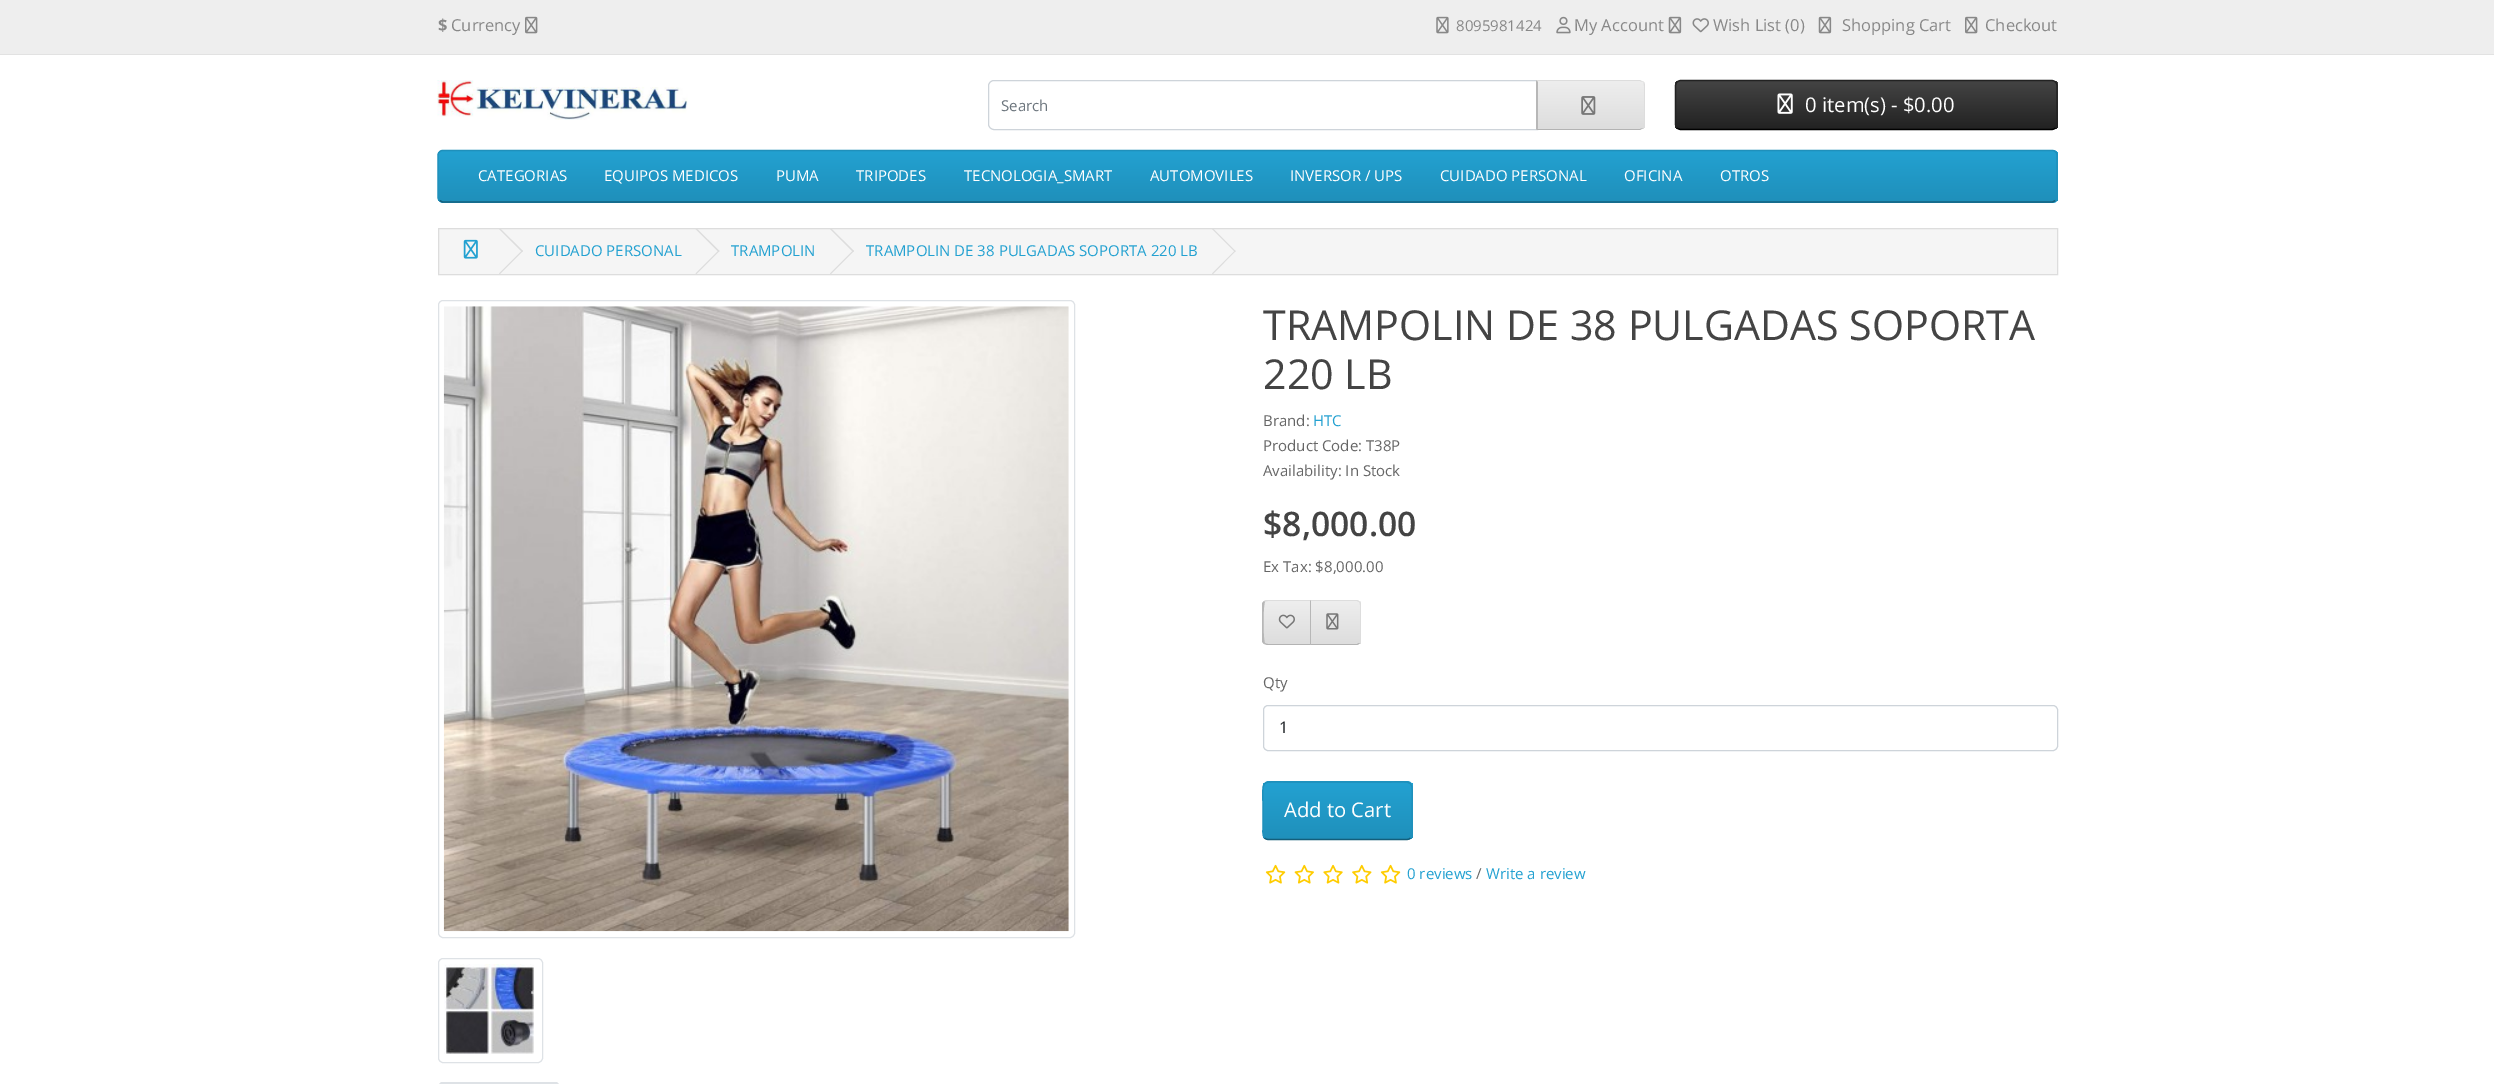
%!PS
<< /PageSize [2494 1084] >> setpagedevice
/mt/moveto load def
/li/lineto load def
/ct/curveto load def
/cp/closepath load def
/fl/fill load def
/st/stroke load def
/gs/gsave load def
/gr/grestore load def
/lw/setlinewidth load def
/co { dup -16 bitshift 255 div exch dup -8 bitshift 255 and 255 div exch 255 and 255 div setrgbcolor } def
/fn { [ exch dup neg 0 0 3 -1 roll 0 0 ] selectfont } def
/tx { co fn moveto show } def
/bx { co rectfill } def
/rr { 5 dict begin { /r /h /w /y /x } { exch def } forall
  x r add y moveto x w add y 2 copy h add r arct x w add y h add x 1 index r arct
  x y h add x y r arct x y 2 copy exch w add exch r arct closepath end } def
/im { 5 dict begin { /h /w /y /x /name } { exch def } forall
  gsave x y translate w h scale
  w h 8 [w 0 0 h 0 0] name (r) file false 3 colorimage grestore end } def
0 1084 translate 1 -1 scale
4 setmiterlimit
0 0 2494 1084 16#FFFFFF bx
0 0 2494 54 16#EEEEEE bx
0 54 2494 1 16#E2E2E2 bx
(media/1.raw) 525 16 13 18 im
(media/2.raw) 1436 16 13 18 im
(media/3.raw) 1556 16 15 18 im
(media/4.raw) 1668 16 14 18 im
(media/5.raw) 1692 18 17 15 im
(media/4.raw) 1818 16 14 18 im
(media/1.raw) 1965 16 13 18 im
(media/6.raw) 437 80 251 40 im
16#CED4DA co
994 80.5 mt 1537.5 80.5 li 1537.5 129.5 li 994 129.5 li 991 129.5 988.5 127 988.5 124 ct 988.5 86 li 988.5 83 991 80.5 994 80.5 ct cp st
16#F8F9FA co
1536 80 mt 1639 80 li 1642.5 80 1645 82.5 1645 86 ct 1645 124 li 1645 127.5 1642.5 130 1639 130 ct 1536 130 li cp fl
gs
1536 80 mt 1639 80 li 1642.5 80 1645 82.5 1645 86 ct 1645 124 li 1645 127.5 1642.5 130 1639 130 ct 1536 130 li cp clip newpath
gs 1537 81 mt 1645 81 li 1645 129 li 1537 129 li cp clip newpath
<< /ShadingType 2 /ColorSpace /DeviceRGB /Coords [1591 81 1591 129] /Extend [true true] /Function << /FunctionType 2 /Domain [0 1] /C0 [.933 .933 .933] /C1 [.867 .867 .867] /N 1 >> >> shfill gr
gr
16#DDDDDD co
1538 81 mt 1640 81 li 1643 82 li 1640 80 li 1536 80 li 1538 82 li cp fl
1645 124 mt 1645 86 li 1645 84 1644 83 1643 82 ct 1644 83 1644 84 1644 86 ct 1644 124 li 1644 126 1644 127 1643 128 ct 1644 127 1645 126 1645 124 ct cp fl
16#B3B3B3 co
1536 130 mt 1640 130 li 1643 128 li 1640 129 li 1538 129 li 1538 128 li cp fl
16#B7B7B7 co
1536 130 mt 1538 128 li 1538 82 li 1536 80 li cp fl
(media/7.raw) 1581 96 15 19 im
gs
1675 80 383 50 6 rr clip newpath
gs 1675 81 mt 2058 81 li 2058 129 li 1675 129 li cp clip newpath
<< /ShadingType 2 /ColorSpace /DeviceRGB /Coords [1866 81 1866 129] /Extend [true true] /Function << /FunctionType 2 /Domain [0 1] /C0 [.267 .267 .267] /C1 [.133 .133 .133] /N 1 >> >> shfill gr
gr
16#000000 co
1.2 lw
2055.5 128 mt 2054.5 129 2053 129.5 2051.5 129.5 ct 1681 129.5 li 1679.5 129.5 1678 129 1677 128 ct st
16#222222 co
1677 128 mt 1676 127 1675.5 125.5 1675.5 124 ct 1675.5 86 li 1675.5 84.5 1676 83 1677 82 ct 1678 81 1679.5 80.5 1681 80.5 ct 2051.5 80.5 li 2053 80.5 2054.5 81 2055.5 82 ct 2056.5 83 2057 84.5 2057 86 ct 2057 124 li 2057 125.5 2056.5 127 2055.5 128 ct st
(media/8.raw) 1777 93 16 21 im
16#229AC8 co
438 150 1620 53 5 rr fl
gs
438 150 1620 53 5 rr clip newpath
gs 438 151 mt 2058 151 li 2058 201 li 438 201 li cp clip newpath
<< /ShadingType 2 /ColorSpace /DeviceRGB /Coords [1248 151 1248 201] /Extend [true true] /Function << /FunctionType 2 /Domain [0 1] /C0 [.137 .631 .82] /C1 [.122 .565 .733] /N 1 >> >> shfill gr
gr
16#145E7A co
2055.5 200.5 mt 2052.5 202 li 442.5 202 li 439.5 200.5 li st
16#1F90BB co
439.5 200.5 mt 438.5 200 438 198.5 438 197.5 ct 438 155 li 438 154 438.5 152.5 439.5 152 ct 440 151 441.5 150.5 442.5 150.5 ct 2052.5 150.5 li 2053.5 150.5 2055 151 2055.5 152 ct 2056.5 152.5 2057 154 2057 155 ct 2057 197.5 li 2057 198.5 2056.5 200 2055.5 200.5 ct st
16#F5F5F5 co
438.5 228.5 mt 2057.5 228.5 li 2057.5 274.5 li 438.5 274.5 li cp gs fl gr
16#DDDDDD co
1 lw
st
(media/9.raw) 463 239 15 20 im
499 229 mt 500 228.5 li 523 251 li 522 252 li cp fl
499 273.5 mt 522 250.5 li 523 251 li 500 274 li cp fl
695.5 229 mt 696.5 228.5 li 719.5 251 li 718.5 252 li cp fl
695.5 273.5 mt 718.5 250.5 li 719.5 251 li 696.5 274 li cp fl
830 229 mt 831 228.5 li 854 251 li 853 252 li cp fl
830 273.5 mt 853 250.5 li 854 251 li 831 274 li cp fl
1212 229 mt 1213 228.5 li 1235.5 251 li 1235 252 li cp fl
1212 273.5 mt 1235 250.5 li 1235.5 251 li 1213 274 li cp fl
16#DEE2E6 co
438.5 300.5 636 637 4.5 rr st
(media/10.raw) 443 306 626 626 im
438.5 958.5 104 104 4.5 rr st
(media/11.raw) 444 964 90 90 im
gs
1268 600 mt 1311 600 li 1311 645 li 1268 645 li 1265 645 1263 643 1263 640 ct 1263 605 li 1263 602 1265 600 1268 600 ct cp clip newpath
gs 1263 601 mt 1310 601 li 1310 644 li 1263 644 li cp clip newpath
<< /ShadingType 2 /ColorSpace /DeviceRGB /Coords [1287 601 1287 644] /Extend [true true] /Function << /FunctionType 2 /Domain [0 1] /C0 [.933 .933 .933] /C1 [.867 .867 .867] /N 1 >> >> shfill gr
gr
16#DDDDDD co
1268 600 mt 1266 600 1265 600 1264 601 ct 1265 602 li 1265 602 1266 601 1268 601 ct 1310 601 li 1311 600 li cp fl
16#B3B3B3 co
1268 645 mt 1311 645 li 1310 644 li 1268 644 li 1266 644 1265 643 1265 643 ct 1264 644 li 1265 644 1266 645 1268 645 ct cp fl
16#B7B7B7 co
1262 603 mt 1264 601 li 1265 602 li 1263 604 1263 641 1265 643 ct 1264 644 li 1262 642 li cp fl
(media/12.raw) 1278 614 17 15 im
gs
1310 600 mt 1356 600 li 1359 600 1361 602 1361 605 ct 1361 640 li 1361 643 1359 645 1356 645 ct 1310 645 li cp clip newpath
gs 1311 601 mt 1361 601 li 1361 644 li 1311 644 li cp clip newpath
<< /ShadingType 2 /ColorSpace /DeviceRGB /Coords [1336 601 1336 644] /Extend [true true] /Function << /FunctionType 2 /Domain [0 1] /C0 [.933 .933 .933] /C1 [.867 .867 .867] /N 1 >> >> shfill gr
gr
16#DDDDDD co
1310 600 mt 1311 601 li 1357 601 li 1359 602 li 1360 602 li 1359 601 1358 600 1356 600 ct cp 1360 602 mt 1361 602 1361 604 1361 605 ct 1361 640 li 1361 641 1361 643 1360 643 ct 1359 643 li 1360 642 1360 641 1360 640 ct 1360 605 li 1360 604 1360 603 1359 602 ct cp fl
16#B3B3B3 co
1356 645 mt 1358 645 1359 644 1360 643 ct 1359 643 li 1357 644 li 1311 644 li 1310 645 li cp fl
16#B7B7B7 co
1310 600 mt 1310 645 li 1311 644 li 1311 601 li cp fl
(media/13.raw) 1326 613 13 17 im
16#CED4DA co
1263.5 705.5 794 45 4.5 rr st
16#229AC8 co
1263 781 150 59 6 rr fl
gs
1263 781 150 59 6 rr clip newpath
gs 1263 783 mt 1413 783 li 1413 839 li 1263 839 li cp clip newpath
<< /ShadingType 2 /ColorSpace /DeviceRGB /Coords [1338 783 1338 839] /Extend [true true] /Function << /FunctionType 2 /Domain [0 1] /C0 [.137 .631 .82] /C1 [.122 .565 .733] /N 1 >> >> shfill gr
gr
16#145E7A co
1.2 lw
1410.5 838 mt 1409.5 839 1408 839.5 1406.5 839.5 ct 1268.5 839.5 li 1267 839.5 1265.5 839 1264.5 838 ct st
16#1F90BB co
1264.5 838 mt 1262 835 1263 829 1263 826 ct 1263 810.5 li 1263 777 1257.5 782 1291.5 782 ct 1383.5 782 li 1417.5 782 1412 777 1412 810.5 ct 1412 826 li 1412 829 1413 835 1410.5 838 ct st
(media/14.raw) 1265 864 21 20 im
(media/15.raw) 1294 864 20 20 im
(media/16.raw) 1323 864 20 20 im
(media/17.raw) 1352 864 20 20 im
(media/14.raw) 1380 864 21 20 im
16#DEE2E6 co
442 1084 mt 440 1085 li 439 1084 li 441 1082 li 557 1082 li 559 1084 li 558 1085 li 555 1084 li cp fl
($) 438 31 /OpenSans-Bold 16.5 16#888888 tx
(Currency) 451 31 /OpenSans-Regular 16.5 16#888888 tx
(8095981424) 1456 31 /OpenSans-Regular 15 16#888888 tx
(My Account) 1574 31 /OpenSans-Regular 16.5 16#888888 tx
(Wish List \(0\)) 1713 31 /OpenSans-Regular 16.5 16#888888 tx
(Shopping Cart) 1842 31 /OpenSans-Regular 16.5 16#888888 tx
(Checkout) 1985 31 /OpenSans-Regular 16.5 16#888888 tx
(Search) 1001 111 /OpenSans-Regular 15 16#6C757D tx
(0 item\(s\) - $0.00) 1805 112 /OpenSans-Regular 20.25 16#FFFFFF tx
(CATEGORIAS) 478 181 /OpenSans-Regular 15 16#FFFFFF tx
(EQUIPOS MEDICOS) 604 181 /OpenSans-Regular 15 16#FFFFFF tx
(PUMA) 776 181 /OpenSans-Regular 15 16#FFFFFF tx
(TRIPODES) 856 181 /OpenSans-Regular 15 16#FFFFFF tx
(TECNOLOGIA_SMART) 964 181 /OpenSans-Regular 15 16#FFFFFF tx
(AUTOMOVILES) 1150 181 /OpenSans-Regular 15 16#FFFFFF tx
(INVERSOR / UPS) 1290 181 /OpenSans-Regular 15 16#FFFFFF tx
(CUIDADO PERSONAL) 1440 181 /OpenSans-Regular 15 16#FFFFFF tx
(OFICINA) 1624 181 /OpenSans-Regular 15 16#FFFFFF tx
(OTROS) 1720 181 /OpenSans-Regular 15 16#FFFFFF tx
(CUIDADO PERSONAL) 535 256 /OpenSans-Regular 15 16#23A1D1 tx
(TRAMPOLIN) 731 256 /OpenSans-Regular 15 16#23A1D1 tx
(TRAMPOLIN DE 38 PULGADAS SOPORTA 220 LB) 866 256 /OpenSans-Regular 15 16#23A1D1 tx
(TRAMPOLIN DE 38 PULGADAS SOPORTA) 1263 340 /OpenSans-Regular 41.25 16#444444 tx
(220 LB) 1263 389 /OpenSans-Regular 41.25 16#444444 tx
(Brand:) 1263 426 /OpenSans-Regular 15 16#666666 tx
(HTC) 1313 426 /OpenSans-Regular 15 16#23A1D1 tx
(Product Code: T38P) 1263 451 /OpenSans-Regular 15 16#666666 tx
(Availability: In Stock) 1263 476 /OpenSans-Regular 15 16#666666 tx
($8,000.00) 1263 536 /OpenSans-SemiBold 33.75 16#444444 tx
(Ex Tax: $8,000.00) 1263 572 /OpenSans-Regular 15 16#666666 tx
(Qty) 1263 688 /OpenSans-Regular 15 16#666666 tx
(1) 1279 733 /OpenSans-Regular 16 16#212529 tx
(Add to Cart) 1284 817 /OpenSans-Regular 20.25 16#FFFFFF tx
(0 reviews) 1407 879 /OpenSans-Regular 15 16#23A1D1 tx
(/) 1476 879 /OpenSans-Regular 15 16#666666 tx
(Write a review) 1486 879 /OpenSans-Regular 15 16#23A1D1 tx
showpage
